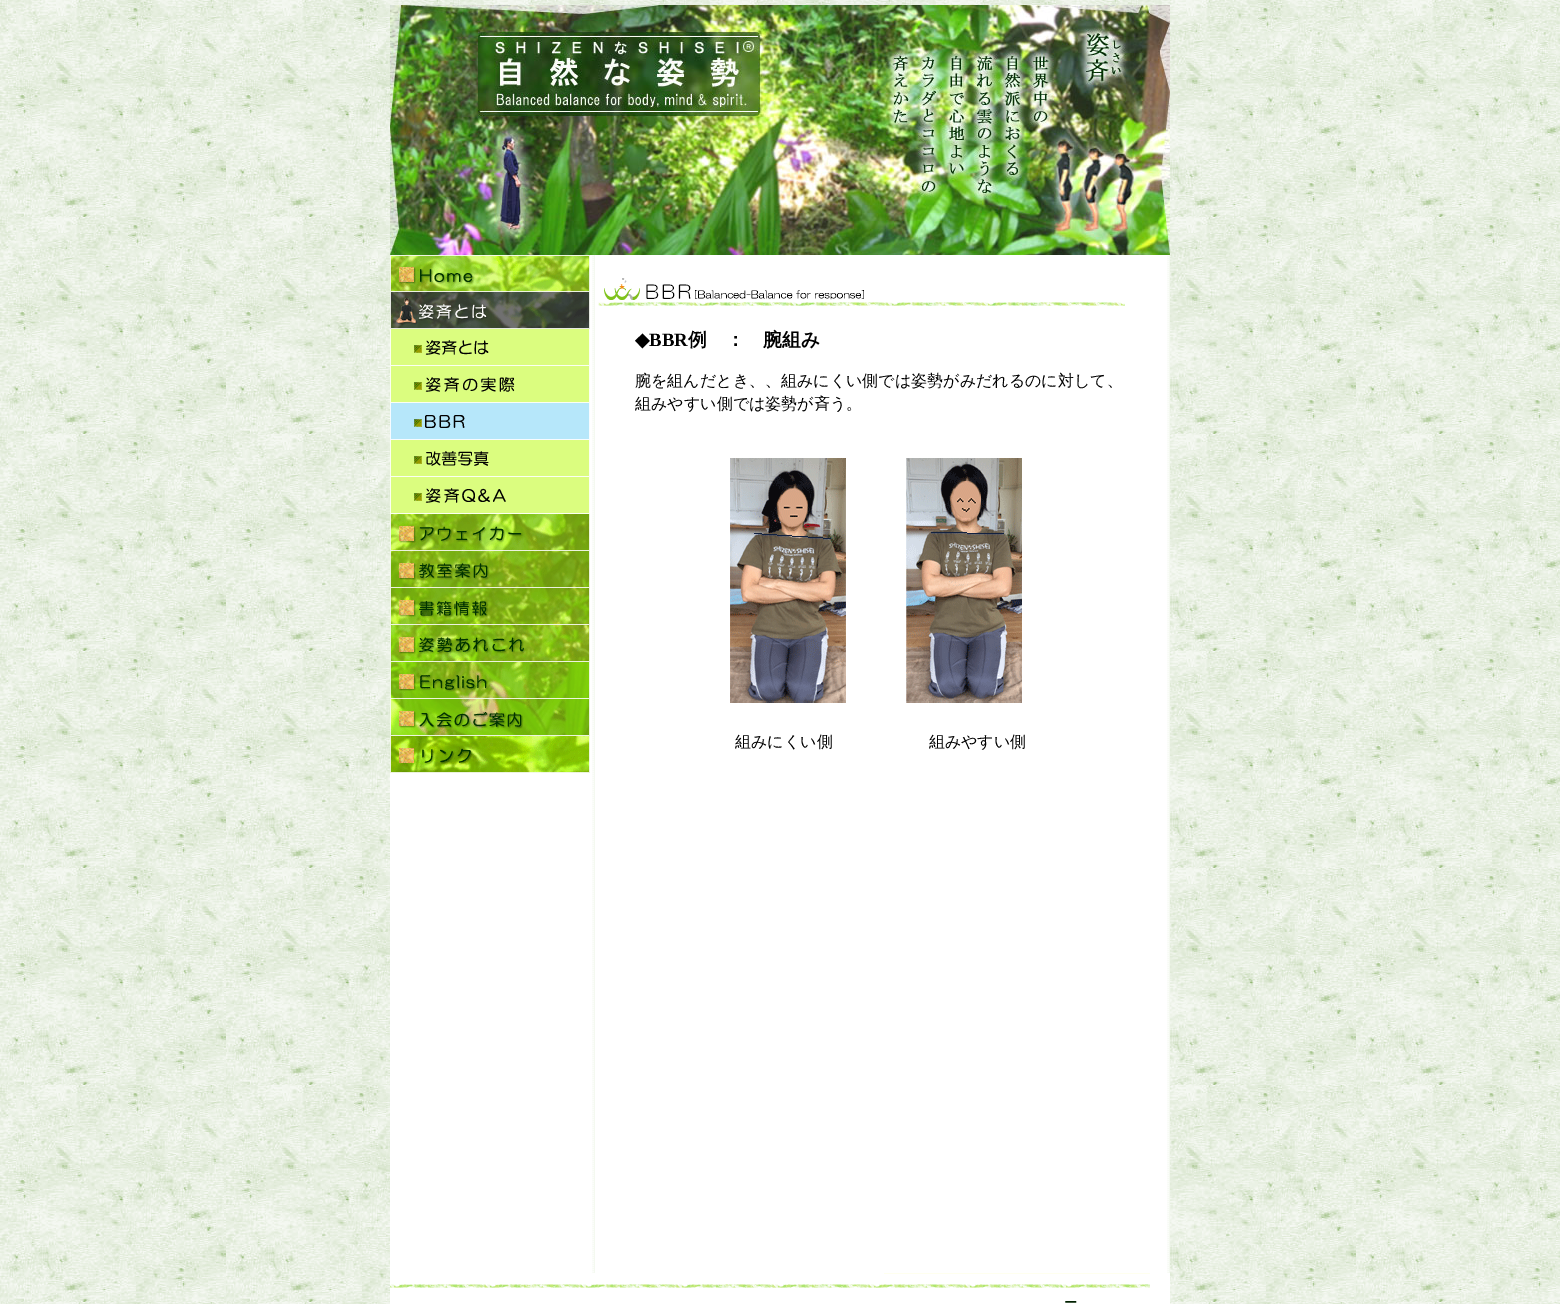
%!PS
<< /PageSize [1560 1304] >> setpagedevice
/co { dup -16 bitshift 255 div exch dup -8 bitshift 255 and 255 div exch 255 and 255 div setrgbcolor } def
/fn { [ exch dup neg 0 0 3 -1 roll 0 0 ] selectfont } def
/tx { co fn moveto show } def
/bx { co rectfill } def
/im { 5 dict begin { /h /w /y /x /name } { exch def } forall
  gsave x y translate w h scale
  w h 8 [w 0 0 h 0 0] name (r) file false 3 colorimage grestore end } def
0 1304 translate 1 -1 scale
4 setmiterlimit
0 0 1560 1304 16#FFFFFF bx
(media/1.raw) 0 0 1560 1304 im
(media/2.raw) 390 5 780 250 im
(media/3.raw) 390 255 200 37 im
590 255 2 1018 16#FFFFFF bx
(media/4.raw) 592 255 3 1018 im
595 255 570 1018 16#FFFFFF bx
(media/5.raw) 598 278 527 28 im
1165 255 2 1018 16#FFFFFF bx
(media/4.raw) 1167 255 3 1018 im
(media/6.raw) 390 292 200 37 im
(media/7.raw) 390 366 200 37 im
(media/8.raw) 390 329 200 37 im
(media/9.raw) 730 458 292 245 im
(media/10.raw) 390 403 200 37 im
(media/11.raw) 390 440 200 37 im
(media/12.raw) 390 477 200 37 im
(media/13.raw) 390 514 200 37 im
(media/14.raw) 390 551 200 37 im
(media/15.raw) 390 588 200 37 im
(media/16.raw) 390 625 200 37 im
(media/17.raw) 390 662 200 37 im
(media/18.raw) 390 699 200 37 im
(media/19.raw) 390 736 200 37 im
390 773 200 500 16#FFFFFF bx
390 1273 780 31 16#FFFFFF bx
(media/20.raw) 390 1273 760 15 im
(◆) 635 346 /DejaVuSans-Bold 18.75 16#000000 tx
(BBR) 649 346 /LiberationSerif-Bold 18.75 16#000000 tx
(例　：　腕組み) 688 346 /WenQuanYiZenHei-Bold 18.75 16#000000 tx
(腕を組んだとき、、組みにくい側では姿勢がみだれるのに対して、) 635 386 /WenQuanYiZenHei-Medium 16 16#000000 tx
(組みやすい側では姿勢が斉う。) 635 409 /WenQuanYiZenHei-Medium 16 16#000000 tx
(組みにくい側　　　　　　組みやすい側) 735 747 /WenQuanYiZenHei-Medium 16 16#000000 tx
(ー) 1064 1307 /WenQuanYiZenHei-Bold 13 16#002100 tx
showpage
